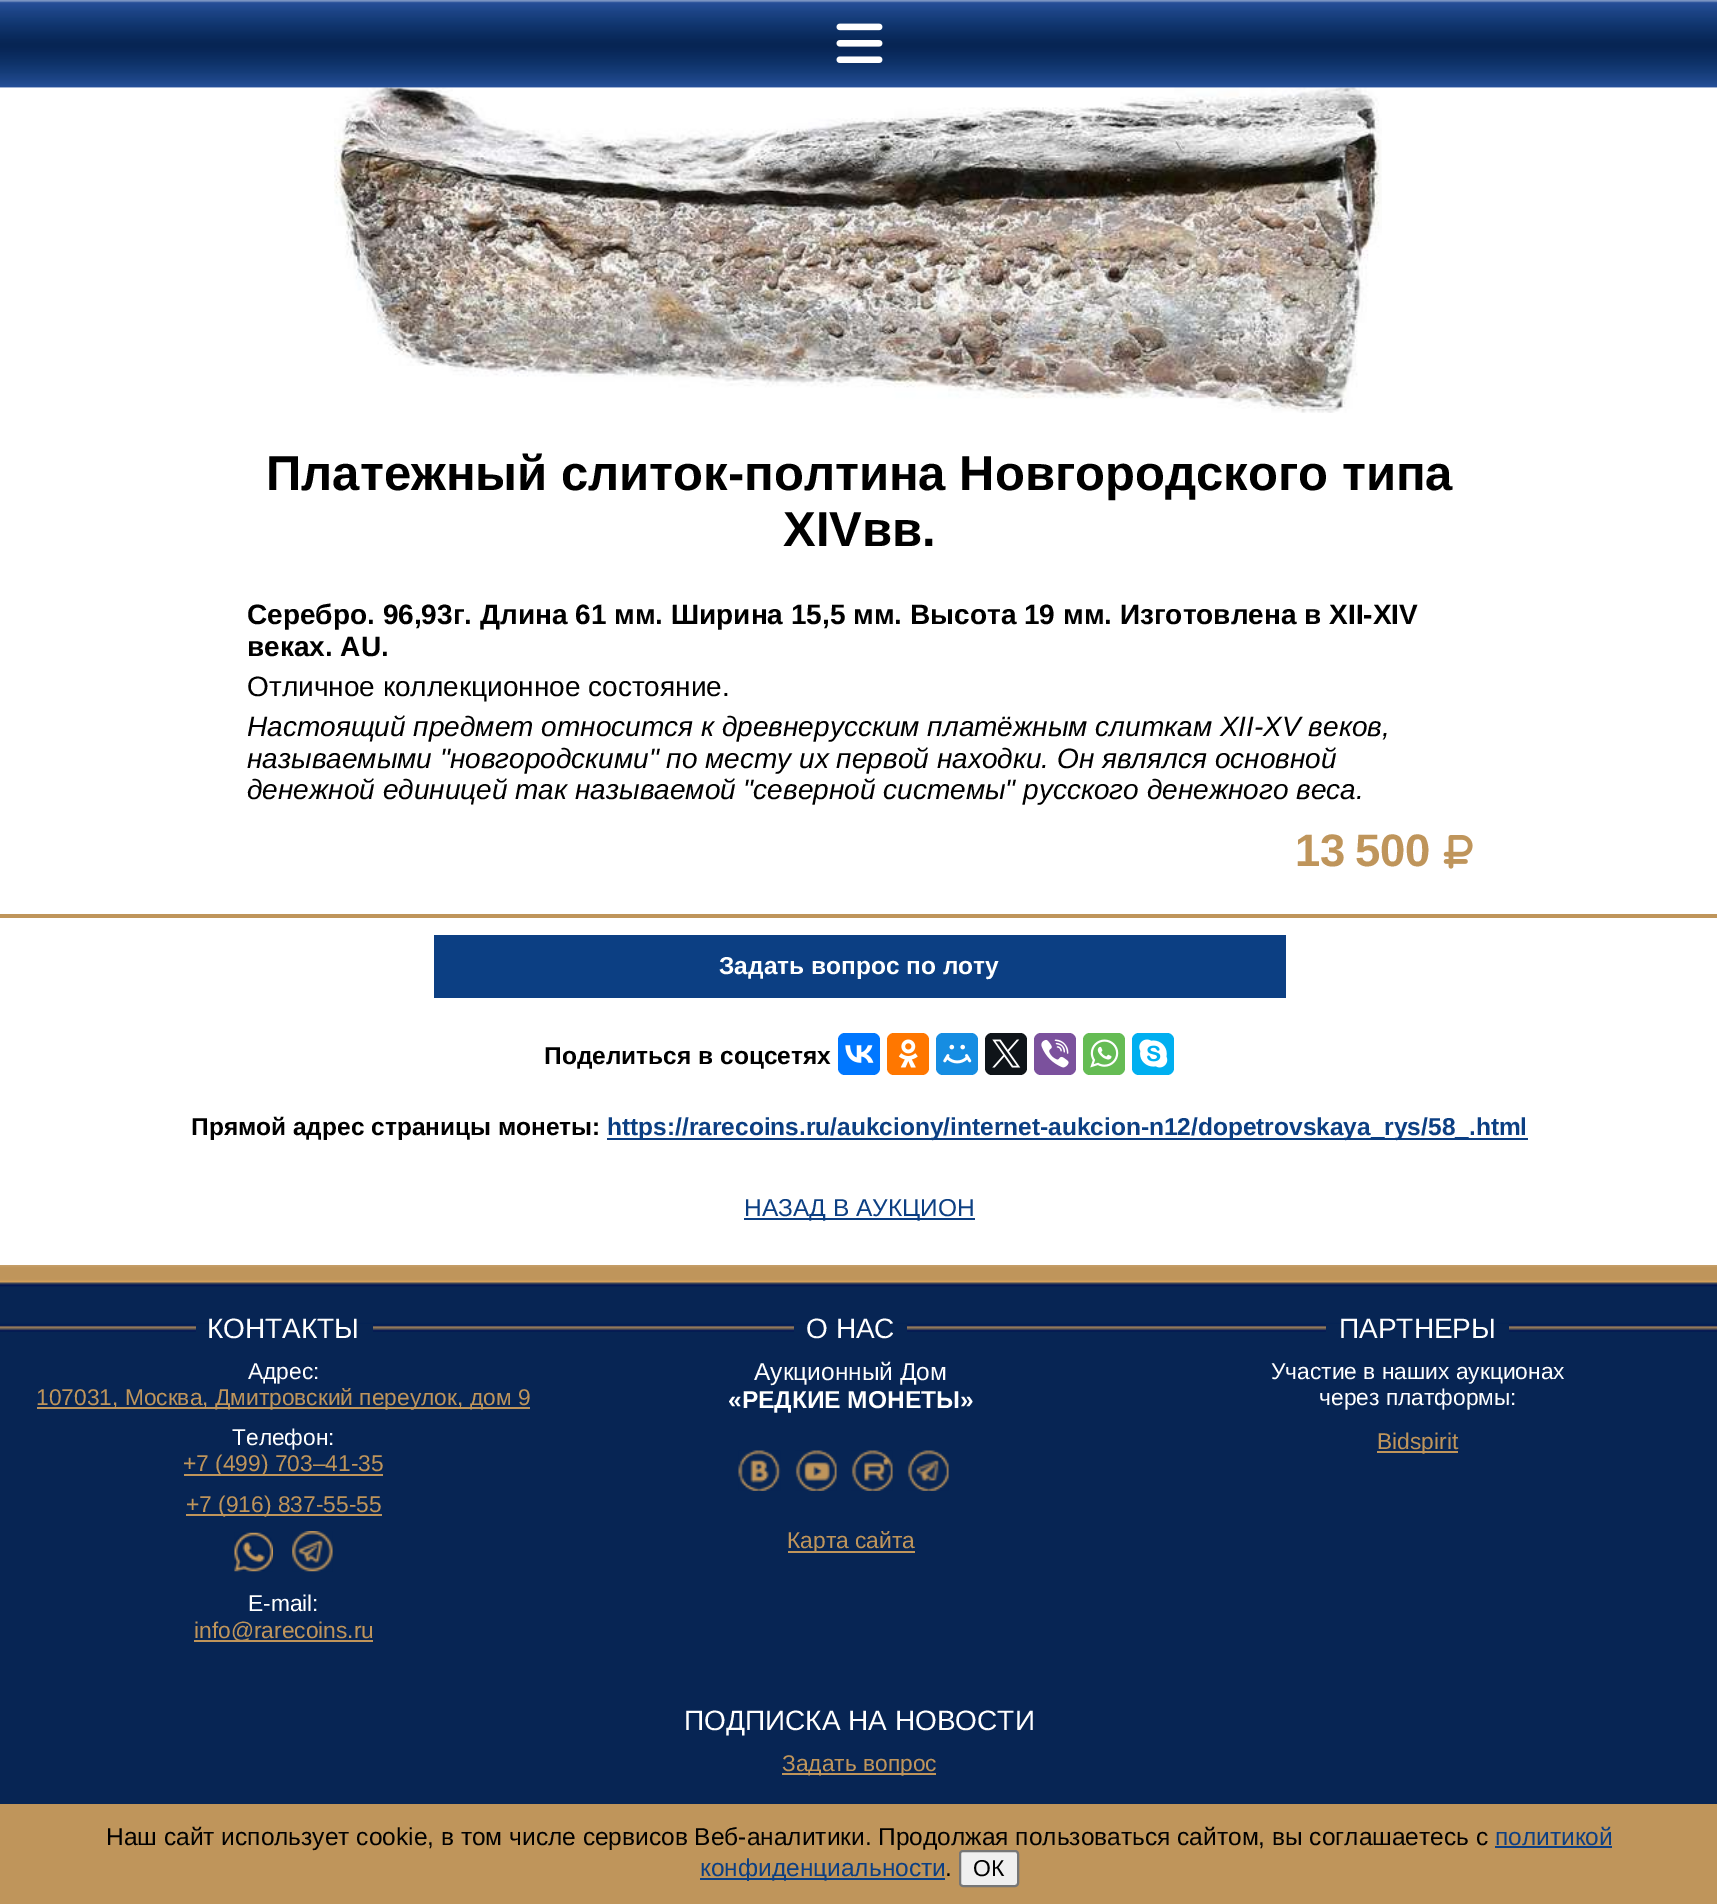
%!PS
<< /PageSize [1717 1904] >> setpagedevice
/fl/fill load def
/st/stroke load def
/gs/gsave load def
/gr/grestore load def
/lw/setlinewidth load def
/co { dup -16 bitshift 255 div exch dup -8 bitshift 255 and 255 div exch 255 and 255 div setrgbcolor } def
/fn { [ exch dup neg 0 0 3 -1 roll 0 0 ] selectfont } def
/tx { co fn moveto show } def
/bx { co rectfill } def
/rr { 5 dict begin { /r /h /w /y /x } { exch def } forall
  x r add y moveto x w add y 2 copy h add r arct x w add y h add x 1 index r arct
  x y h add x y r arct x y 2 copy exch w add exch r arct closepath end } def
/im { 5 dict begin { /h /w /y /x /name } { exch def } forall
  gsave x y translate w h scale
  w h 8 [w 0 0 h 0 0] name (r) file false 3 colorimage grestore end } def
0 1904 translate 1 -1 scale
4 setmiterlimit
0 0 1717 1904 16#FFFFFF bx
(media/3.raw) 334 87 1048 326 im
(media/1.raw) 0 0 1717 88 im
(media/2.raw) 836 23 47 40 im
(media/4.raw) 1443 835 30 34 im
0 914 1717 4 16#BF955B bx
434 935 852 63 16#0C3F83 bx
16#0077FF co
838 1033 42 42 7 rr fl
(media/5.raw) 845 1045 29 18 im
16#FF7700 co
887 1033 42 42 7 rr fl
(media/6.raw) 898 1039 20 29 im
16#168DE2 co
936 1033 42 42 7 rr fl
(media/7.raw) 943 1044 29 20 im
16#0F1419 co
985 1033 42 42 7 rr fl
(media/8.raw) 992 1039 29 29 im
16#7B519D co
1034 1033 42 42 7 rr fl
(media/9.raw) 1041 1039 28 29 im
16#65BC54 co
1083 1033 42 42 7 rr fl
(media/10.raw) 1090 1039 29 29 im
16#00AFF0 co
1132 1033 42 42 7 rr fl
(media/11.raw) 1139 1039 29 29 im
607 1138 921 2 16#0C3F83 bx
744 1218 231 2 16#0C3F83 bx
0 1332 1717 472 16#072554 bx
(media/12.raw) 0 1265 1717 67 im
196 1324 177 8 16#072554 bx
37 1407 493 2 16#BF955B bx
184 1474 199 2 16#BF955B bx
186 1514 196 2 16#BF955B bx
(media/13.raw) 234 1532 39 40 im
(media/14.raw) 292 1531 41 41 im
194 1640 179 2 16#BF955B bx
794 1324 113 8 16#072554 bx
(media/15.raw) 738 1450 43 41 im
(media/16.raw) 795 1450 42 41 im
(media/17.raw) 851 1450 42 41 im
(media/18.raw) 907 1450 42 41 im
788 1551 127 2 16#BF955B bx
1326 1324 183 8 16#072554 bx
1377 1451 81 2 16#BF955B bx
782 1773 154 2 16#BF955B bx
0 1804 1717 100 16#BF955B bx
1495 1846 117 2 16#0C3F83 bx
700 1878 245 2 16#0C3F83 bx
(Платежный слиток-полтина Новгородского типа) 266 490 /LiberationSans-Bold 49 16#000000 tx
(XIVвв.) 783 546 /LiberationSans-Bold 49 16#000000 tx
(Серебро. 96,93г. Длина 61 мм. Ширина 15,5 мм. Высота 19 мм. Изготовлена в XII-XIV) 247 624 /LiberationSans-Bold 28 16#000000 tx
(веках. AU.) 247 656 /LiberationSans-Bold 28 16#000000 tx
(Отличное коллекционное состояние.) 247 696 /LiberationSans-Regular 28 16#000000 tx
(Настоящий предмет относится к древнерусским платёжным слиткам XII-XV веков,) 247 736 /LiberationSans-Italic 28 16#000000 tx
(называемыми "новгородскими" по месту их первой находки. Он являлся основной) 247 768 /LiberationSans-Italic 28 16#000000 tx
(денежной единицей так называемой "северной системы" русского денежного веса.) 247 799 /LiberationSans-Italic 28 16#000000 tx
(13 500) 1295 866 /LiberationSans-Bold 45.5 16#BF955B tx
(Задать вопрос по лоту) 719 974 /LiberationSans-Bold 24.5 16#FFFFFF tx
(Поделиться в соцсетях) 544 1064 /LiberationSans-Bold 24.5 16#000000 tx
(Прямой адрес страницы монеты:) 191 1135 /LiberationSans-Bold 24.5 16#000000 tx
(https://rarecoins.ru/aukciony/internet-aukcion-n12/dopetrovskaya_rys/58_.html) 607 1135 /LiberationSans-Bold 24.5 16#0C3F83 tx
(НАЗАД В АУКЦИОН) 744 1216 /LiberationSans-Regular 24.5 16#0C3F83 tx
(КОНТАКТЫ) 207 1338 /LiberationSans-Regular 28 16#FFFFFF tx
(Адрес:) 248 1379 /LiberationSans-Regular 22.75 16#FFFFFF tx
(107031, Москва, Дмитровский переулок, дом 9) 36 1405 /LiberationSans-Regular 22.75 16#BF955B tx
(Телефон:) 232 1445 /LiberationSans-Regular 22.75 16#FFFFFF tx
(+7 \(499\) 703–41-35) 183 1471 /LiberationSans-Regular 22.75 16#BF955B tx
(+7 \(916\) 837-55-55) 186 1512 /LiberationSans-Regular 22.75 16#BF955B tx
(E-mail:) 248 1611 /LiberationSans-Regular 22.75 16#FFFFFF tx
(info@rarecoins.ru) 194 1638 /LiberationSans-Regular 22.75 16#BF955B tx
(О НАС) 806 1338 /LiberationSans-Regular 28 16#FFFFFF tx
(Аукционный Дом) 754 1380 /LiberationSans-Regular 24.5 16#FFFFFF tx
(«РЕДКИЕ МОНЕТЫ») 728 1408 /LiberationSans-Bold 24.5 16#FFFFFF tx
(Карта сайта) 787 1548 /LiberationSans-Regular 22.75 16#BF955B tx
(ПАРТНЕРЫ) 1339 1338 /LiberationSans-Regular 28 16#FFFFFF tx
(Участие в наших аукционах) 1271 1379 /LiberationSans-Regular 22.75 16#FFFFFF tx
(через платформы:) 1319 1405 /LiberationSans-Regular 22.75 16#FFFFFF tx
(Bidspirit) 1377 1449 /LiberationSans-Regular 22.75 16#BF955B tx
(ПОДПИСКА НА НОВОСТИ) 684 1730 /LiberationSans-Regular 28 16#FFFFFF tx
(Задать вопрос) 782 1771 /LiberationSans-Regular 22.75 16#BF955B tx
(Наш сайт использует сооkiе, в том числе сервисов Веб-аналитики. Продолжая пользоваться сайтом, вы соглашаетесь с) 106 1845 /LiberationSans-Regular 24.5 16#000000 tx
(политикой) 1495 1845 /LiberationSans-Regular 24.5 16#0C3F83 tx
(конфиденциальности) 700 1876 /LiberationSans-Regular 24.5 16#0C3F83 tx
(.) 945 1876 /LiberationSans-Regular 24.5 16#000000 tx
16#EFEFEF co
960 1851 58 35 3 rr gs fl gr
16#767676 co
2 lw
st
(ОК) 973 1876 /LiberationSans-Regular 23 16#000000 tx
showpage
